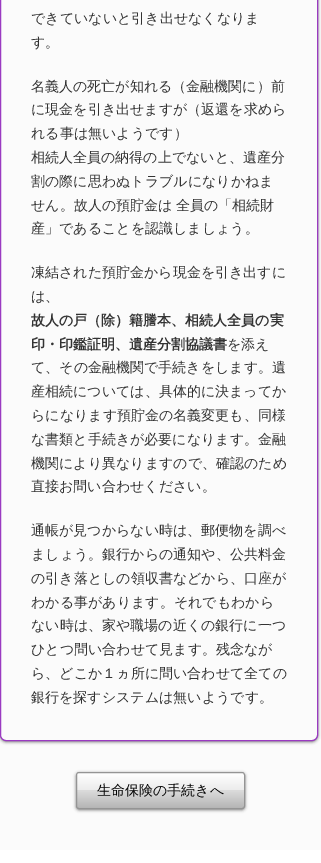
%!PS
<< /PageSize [321 863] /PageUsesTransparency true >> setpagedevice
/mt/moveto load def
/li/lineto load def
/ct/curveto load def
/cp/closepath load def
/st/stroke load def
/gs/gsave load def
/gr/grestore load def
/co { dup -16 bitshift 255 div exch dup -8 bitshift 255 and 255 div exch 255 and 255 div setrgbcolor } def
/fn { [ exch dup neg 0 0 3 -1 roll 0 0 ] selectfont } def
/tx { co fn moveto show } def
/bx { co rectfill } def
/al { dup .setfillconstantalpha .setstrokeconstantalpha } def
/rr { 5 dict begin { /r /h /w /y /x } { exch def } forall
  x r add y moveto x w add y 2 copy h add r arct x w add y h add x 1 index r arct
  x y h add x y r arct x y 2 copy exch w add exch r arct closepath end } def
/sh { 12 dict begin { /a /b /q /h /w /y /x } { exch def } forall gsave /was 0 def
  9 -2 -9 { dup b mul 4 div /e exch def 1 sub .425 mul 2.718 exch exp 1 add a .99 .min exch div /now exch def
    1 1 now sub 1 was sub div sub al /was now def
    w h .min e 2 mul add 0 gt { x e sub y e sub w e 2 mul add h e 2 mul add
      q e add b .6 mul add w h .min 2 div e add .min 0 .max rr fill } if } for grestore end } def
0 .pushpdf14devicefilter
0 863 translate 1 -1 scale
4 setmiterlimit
0 0 321 863 16#FFFFFF bx
0 0 321 850 16#FBFBFB bx
gs
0 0 mt 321 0 li 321 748 li 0 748 li cp 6 -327 mt 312 -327 li 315.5 -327 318 -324.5 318 -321 ct 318 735 li 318 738.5 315.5 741 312 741 ct 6 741 li 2.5 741 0 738.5 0 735 ct 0 -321 li 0 -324.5 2.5 -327 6 -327 ct cp eoclip newpath
16#000000 co
0 -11 318 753 6 1.5 .5 sh
gr
16#9A3AC1 co
.5 -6.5 317 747 5.5 rr st
16#000000 co
76 773 169 37 3 1.5 .5 sh
gs
76 772 169 37 3 rr clip newpath
gs 76 773 mt 245 773 li 245 808 li 76 808 li cp clip newpath
<< /ShadingType 2 /ColorSpace /DeviceRGB /Coords [77 773 77 808] /Extend [true true] /Function << /FunctionType 3 /Domain [0 1] /Functions [<< /FunctionType 2 /Domain [0 1] /C0 [1 1 1] /C1 [.922 .922 .922] /N 1 >> << /FunctionType 2 /Domain [0 1] /C0 [.859 .859 .859] /C1 [.71 .71 .71] /N 1 >>] /Bounds [.5] /Encode [0 1 0 1] >> >> shfill gr
gr
16#949494 co
76.5 772.5 168 36 2.5 rr st
(できていないと引き出せなくなりま) 31 23 /WenQuanYiZenHei-Medium 14 16#333333 tx
(す。) 31 47 /WenQuanYiZenHei-Medium 14 16#333333 tx
(名義人の死亡が知れる（金融機関に）前) 31 91 /WenQuanYiZenHei-Medium 14 16#333333 tx
(に現金を引き出せますが（返還を求めら) 31 114 /WenQuanYiZenHei-Medium 14 16#333333 tx
(れる事は無いようです）) 31 138 /WenQuanYiZenHei-Medium 14 16#333333 tx
(相続人全員の納得の上でないと、遺産分) 31 162 /WenQuanYiZenHei-Medium 14 16#333333 tx
(割の際に思わぬトラブルになりかねま) 31 186 /WenQuanYiZenHei-Medium 14 16#333333 tx
31 210 mt -1 0 32 (せん。故人の預貯金は 全員の「相続財) widthshow
(産」であることを認識しましょう。) 31 233 /WenQuanYiZenHei-Medium 14 16#333333 tx
(凍結された預貯金から現金を引き出すに) 31 277 /WenQuanYiZenHei-Medium 14 16#333333 tx
(は、) 31 301 /WenQuanYiZenHei-Medium 14 16#333333 tx
(故人の戸（除）籍謄本、相続人全員の実) 31 325 /WenQuanYiZenHei-Bold 14 16#333333 tx
(印・印鑑証明、遺産分割協議書) 31 349 /WenQuanYiZenHei-Bold 14 16#333333 tx
(を添え) 227 349 /WenQuanYiZenHei-Medium 14 16#333333 tx
(て、その金融機関で手続きをします。遺) 31 372 /WenQuanYiZenHei-Medium 14 16#333333 tx
(産相続については、具体的に決まってか) 31 396 /WenQuanYiZenHei-Medium 14 16#333333 tx
(らになります預貯金の名義変更も、同様) 31 420 /WenQuanYiZenHei-Medium 14 16#333333 tx
(な書類と手続きが必要になります。金融) 31 444 /WenQuanYiZenHei-Medium 14 16#333333 tx
(機関により異なりますので、確認のため) 31 468 /WenQuanYiZenHei-Medium 14 16#333333 tx
(直接お問い合わせください。) 31 491 /WenQuanYiZenHei-Medium 14 16#333333 tx
(通帳が見つからない時は、郵便物を調べ) 31 535 /WenQuanYiZenHei-Medium 14 16#333333 tx
(ましょう。銀行からの通知や、公共料金) 31 559 /WenQuanYiZenHei-Medium 14 16#333333 tx
(の引き落としの領収書などから、口座が) 31 583 /WenQuanYiZenHei-Medium 14 16#333333 tx
(わかる事があります。それでもわから) 31 607 /WenQuanYiZenHei-Medium 14 16#333333 tx
(ない時は、家や職場の近くの銀行に一つ) 31 630 /WenQuanYiZenHei-Medium 14 16#333333 tx
(ひとつ問い合わせて見ます。残念なが) 31 654 /WenQuanYiZenHei-Medium 14 16#333333 tx
(ら、どこか１ヵ所に問い合わせて全ての) 31 678 /WenQuanYiZenHei-Medium 14 16#333333 tx
(銀行を探すシステムは無いようです。) 31 702 /WenQuanYiZenHei-Medium 14 16#333333 tx
(生命保険の手続きへ) 97 795 /WenQuanYiZenHei-Medium 14 16#050505 tx
.poppdf14devicefilter showpage
